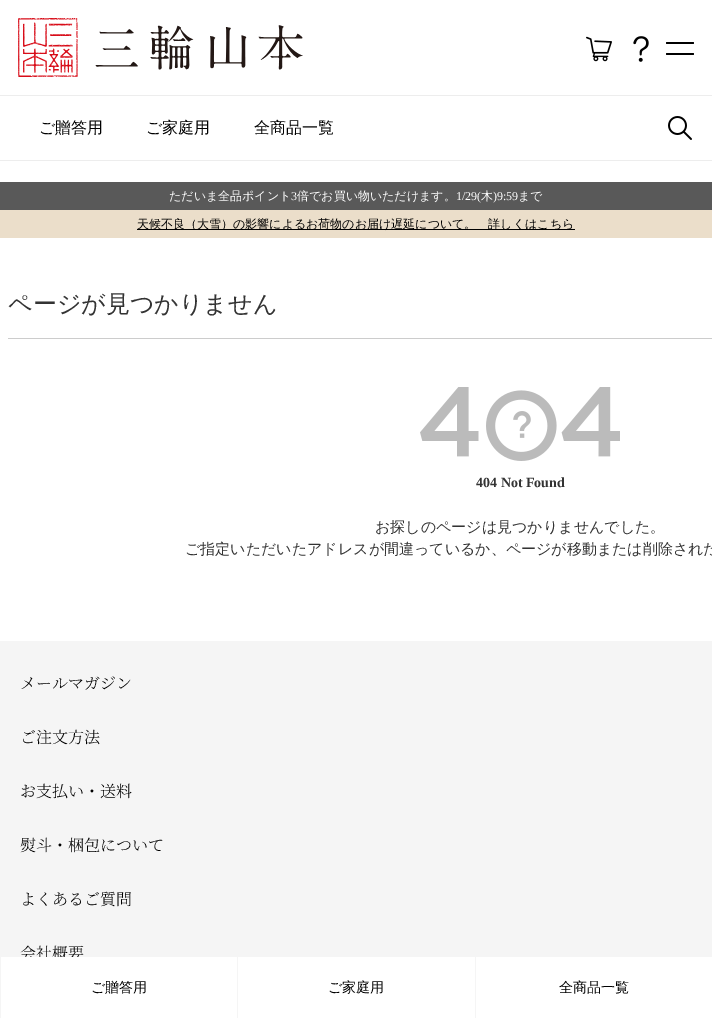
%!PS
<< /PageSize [712 1018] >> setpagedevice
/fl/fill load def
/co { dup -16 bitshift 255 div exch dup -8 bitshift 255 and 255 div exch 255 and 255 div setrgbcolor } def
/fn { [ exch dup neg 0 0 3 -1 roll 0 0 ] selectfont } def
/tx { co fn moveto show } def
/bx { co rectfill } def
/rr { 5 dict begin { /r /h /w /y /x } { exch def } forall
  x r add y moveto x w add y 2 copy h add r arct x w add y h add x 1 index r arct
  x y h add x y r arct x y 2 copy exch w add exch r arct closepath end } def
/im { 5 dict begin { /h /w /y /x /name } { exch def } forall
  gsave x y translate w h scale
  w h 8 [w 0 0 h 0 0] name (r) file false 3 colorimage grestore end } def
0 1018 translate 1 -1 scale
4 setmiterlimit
0 0 712 1018 16#FFFFFF bx
0 95 712 1 16#EDEDED bx
(media/1.raw) 18 18 285 59 im
(media/2.raw) 586 36 26 26 im
(media/3.raw) 633 36 16 26 im
16#000000 co
666 42 28 2 1 rr fl
666 53 28 2 1 rr fl
0 160 712 1 16#EDEDED bx
(media/4.raw) 668 116 24 24 im
0 182 712 28 16#595959 bx
0 210 712 28 16#EBDECA bx
137 229 438 1 16#000000 bx
8 338 704 1 16#CCCCCC bx
(media/5.raw) 420 387 200 74 im
0 641 712 316 16#F5F5F5 bx
0 957 1 61 16#F5F5F5 bx
237 957 1 61 16#F5F5F5 bx
475 957 1 61 16#F5F5F5 bx
(ご贈答用) 39 133 /WenQuanYiZenHei-Medium 16 16#000000 tx
(ご家庭用) 146 133 /WenQuanYiZenHei-Medium 16 16#000000 tx
(全商品一覧) 254 133 /WenQuanYiZenHei-Medium 16 16#000000 tx
(ただいま全品ポイント) 169 200 /WenQuanYiZenHei-Medium 12 16#FFFFFF tx
(3) 291 200 /LiberationSerif-Regular 12 16#FFFFFF tx
(倍でお買い物いただけます。) 297 200 /WenQuanYiZenHei-Medium 12 16#FFFFFF tx
(1/29\() 456 200 /LiberationSerif-Regular 12 16#FFFFFF tx
(木) 481 200 /WenQuanYiZenHei-Medium 12 16#FFFFFF tx
(\)9:59) 493 200 /LiberationSerif-Regular 12 16#FFFFFF tx
(まで) 518 200 /WenQuanYiZenHei-Medium 12 16#FFFFFF tx
(天候不良（大雪）の影響によるお荷物のお届け遅延について。　詳しくはこちら) 137 228 /WenQuanYiZenHei-Medium 12 16#000000 tx
(ページが見つかりません) 8 312 /WenQuanYiZenHei-Medium 24 16#333333 tx
(404 Not Found) 476 487 /LiberationSerif-Bold 14 16#333333 tx
(お探しのページは見つかりませんでした。) 375 532 /WenQuanYiZenHei-Medium 15 16#333333 tx
(ご指定いただいたアドレスが間違っているか、ページが移動または削除された) 185 554 /WenQuanYiZenHei-Medium 15 16#333333 tx
(メールマガジン) 20 689 /NotoSerifJP-Light 16 16#000000 tx
(ご注文方法) 20 743 /NotoSerifJP-Light 16 16#000000 tx
(お支払い・送料) 20 797 /NotoSerifJP-Light 16 16#000000 tx
(熨斗・梱包について) 20 851 /NotoSerifJP-Light 16 16#000000 tx
(よくあるご質問) 20 905 /NotoSerifJP-Light 16 16#000000 tx
(会社概要) 20 959 /NotoSerifJP-Light 16 16#000000 tx
21 957 62 4 16#FFFFFF bx
(ご贈答用) 91 992 /WenQuanYiZenHei-Medium 14 16#000000 tx
(ご家庭用) 328 992 /WenQuanYiZenHei-Medium 14 16#000000 tx
(全商品一覧) 559 992 /WenQuanYiZenHei-Medium 14 16#000000 tx
showpage
